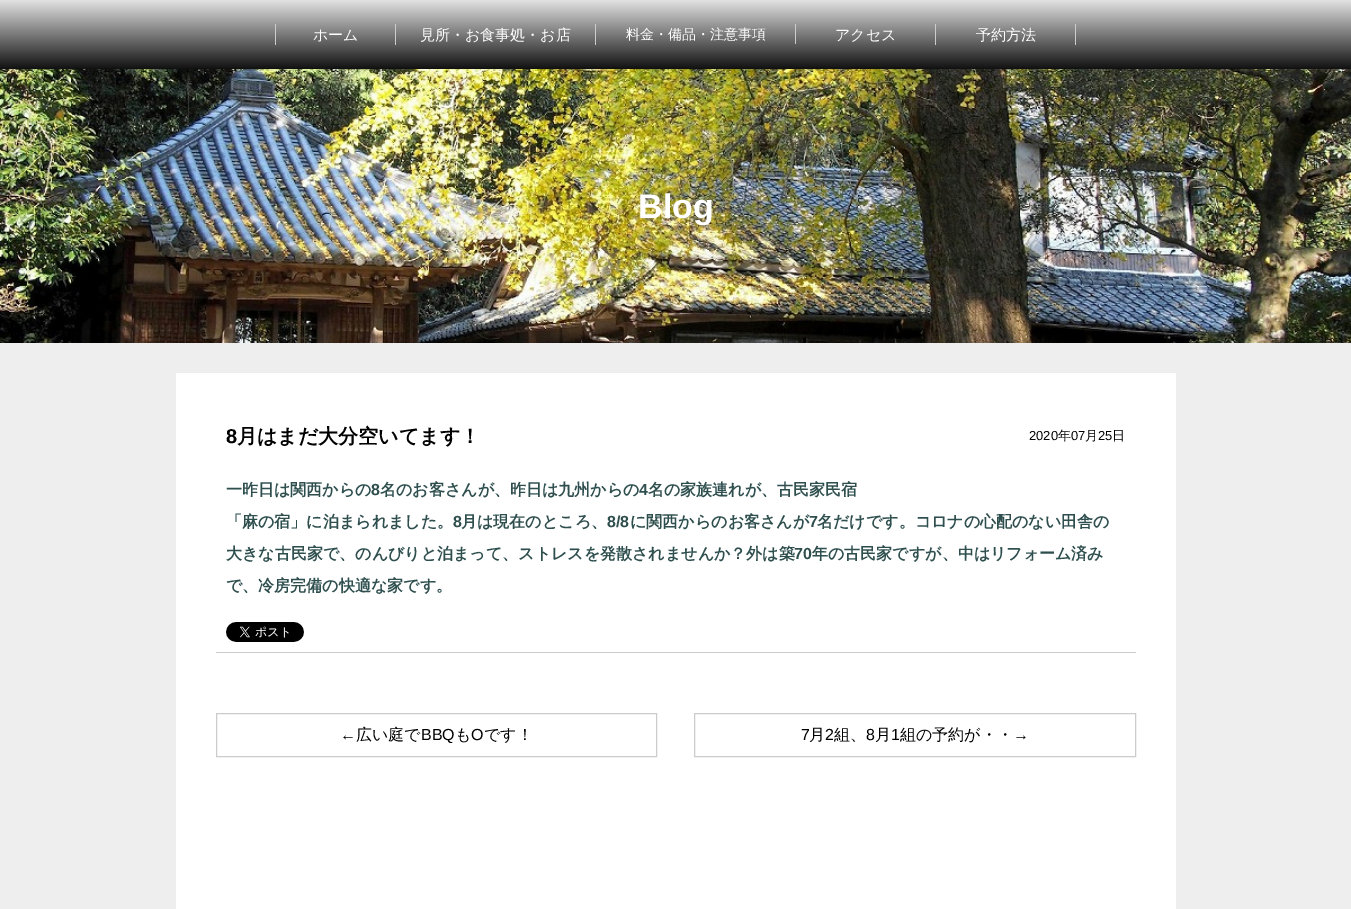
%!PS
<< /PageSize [1351 909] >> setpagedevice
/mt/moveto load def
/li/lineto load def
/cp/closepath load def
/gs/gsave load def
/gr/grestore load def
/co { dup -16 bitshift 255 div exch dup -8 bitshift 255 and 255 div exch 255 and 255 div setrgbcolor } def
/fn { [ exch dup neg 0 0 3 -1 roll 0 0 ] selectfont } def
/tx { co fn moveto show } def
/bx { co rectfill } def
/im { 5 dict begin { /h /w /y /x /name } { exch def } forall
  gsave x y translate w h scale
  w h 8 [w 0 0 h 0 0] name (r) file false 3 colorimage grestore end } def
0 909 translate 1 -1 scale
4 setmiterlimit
0 0 1351 909 16#FFFFFF bx
gs 0 0 mt 1351 0 li 1351 69 li 0 69 li cp clip newpath
<< /ShadingType 2 /ColorSpace /DeviceRGB /Coords [676 0 676 69] /Extend [true true] /Function << /FunctionType 2 /Domain [0 1] /C0 [.886 .886 .886] /C1 [.067 .067 .067] /N 1 >> >> shfill gr
275 24 1 21 16#CCCCCC bx
395 24 1 21 16#CCCCCC bx
595 24 1 21 16#CCCCCC bx
795 24 1 20 16#CCCCCC bx
935 24 1 21 16#CCCCCC bx
1075 24 1 21 16#CCCCCC bx
(media/1.raw) 0 69 1351 274 im
0 343 1351 566 16#EEEEEE bx
176 373 1000 536 16#FFFFFF bx
216 652 920 1 16#CCCCCC bx
(media/2.raw) 226 622 78 20 im
216.5 713.5 440 43 rectstroke
694.5 713.5 441 43 rectstroke
(ホーム) 313 40 /WenQuanYiZenHei-Medium 15 16#FFFFFF tx
(見所・お食事処・お店) 420 40 /WenQuanYiZenHei-Medium 15 16#FFFFFF tx
(料金・備品・注意事項) 626 39 /WenQuanYiZenHei-Medium 14 16#FFFFFF tx
(アクセス) 835 40 /WenQuanYiZenHei-Medium 15 16#FFFFFF tx
(予約方法) 976 40 /WenQuanYiZenHei-Medium 15 16#FFFFFF tx
(Blog) 638 218 /LiberationSans-Bold 34 16#FFFFFF tx
(8) 226 443 /LiberationSans-Bold 20 16#000000 tx
(月はまだ大分空いてます！) 237 443 /WenQuanYiZenHei-Bold 20 16#000000 tx
(2020) 1029 440 /LiberationSans-Regular 13 16#000000 tx
(年) 1058 440 /WenQuanYiZenHei-Medium 13 16#000000 tx
(07) 1071 440 /LiberationSans-Regular 13 16#000000 tx
(月) 1085 440 /WenQuanYiZenHei-Medium 13 16#000000 tx
(25) 1098 440 /LiberationSans-Regular 13 16#000000 tx
(日) 1112 440 /WenQuanYiZenHei-Medium 13 16#000000 tx
(一昨日は関西からの) 226 495 /WenQuanYiZenHei-Bold 16 16#2F4F4F tx
(8) 371 495 /LiberationSans-Bold 16 16#2F4F4F tx
(名のお客さんが、昨日は九州からの) 380 495 /WenQuanYiZenHei-Bold 16 16#2F4F4F tx
(4) 639 495 /LiberationSans-Bold 16 16#2F4F4F tx
(名の家族連れが、古民家民宿) 648 495 /WenQuanYiZenHei-Bold 16 16#2F4F4F tx
(「麻の宿」に泊まられました。) 226 527 /WenQuanYiZenHei-Bold 16 16#2F4F4F tx
(8) 453 527 /LiberationSans-Bold 16 16#2F4F4F tx
(月は現在のところ、) 461 527 /WenQuanYiZenHei-Bold 16 16#2F4F4F tx
(8/8) 607 527 /LiberationSans-Bold 16 16#2F4F4F tx
(に関西からのお客さんが) 630 527 /WenQuanYiZenHei-Bold 16 16#2F4F4F tx
(7) 809 527 /LiberationSans-Bold 16 16#2F4F4F tx
(名だけです。コロナの心配のない田舎の) 817 527 /WenQuanYiZenHei-Bold 16 16#2F4F4F tx
(大きな古民家で、のんびりと泊まって、ストレスを発散されませんか？外は築) 226 559 /WenQuanYiZenHei-Bold 16 16#2F4F4F tx
(70) 794 559 /LiberationSans-Bold 16 16#2F4F4F tx
(年の古民家ですが、中はリフォーム済み) 812 559 /WenQuanYiZenHei-Bold 16 16#2F4F4F tx
(で、冷房完備の快適な家です。) 226 591 /WenQuanYiZenHei-Bold 16 16#2F4F4F tx
(←) 340 740 /LiberationSans-Regular 16 16#000000 tx
(広い庭で) 356 740 /WenQuanYiZenHei-Medium 16 16#000000 tx
(BBQ) 421 740 /LiberationSans-Regular 16 16#000000 tx
(も) 455 740 /WenQuanYiZenHei-Medium 16 16#000000 tx
(O) 471 740 /LiberationSans-Regular 16 16#000000 tx
(です！) 484 740 /WenQuanYiZenHei-Medium 16 16#000000 tx
(7) 801 740 /LiberationSans-Regular 16 16#000000 tx
(月) 809 740 /WenQuanYiZenHei-Medium 16 16#000000 tx
(2) 825 740 /LiberationSans-Regular 16 16#000000 tx
(組、) 834 740 /WenQuanYiZenHei-Medium 16 16#000000 tx
(8) 866 740 /LiberationSans-Regular 16 16#000000 tx
(月) 875 740 /WenQuanYiZenHei-Medium 16 16#000000 tx
(1) 891 740 /LiberationSans-Regular 16 16#000000 tx
(組の予約が・・) 900 740 /WenQuanYiZenHei-Medium 16 16#000000 tx
(→) 1013 740 /LiberationSans-Regular 16 16#000000 tx
showpage
